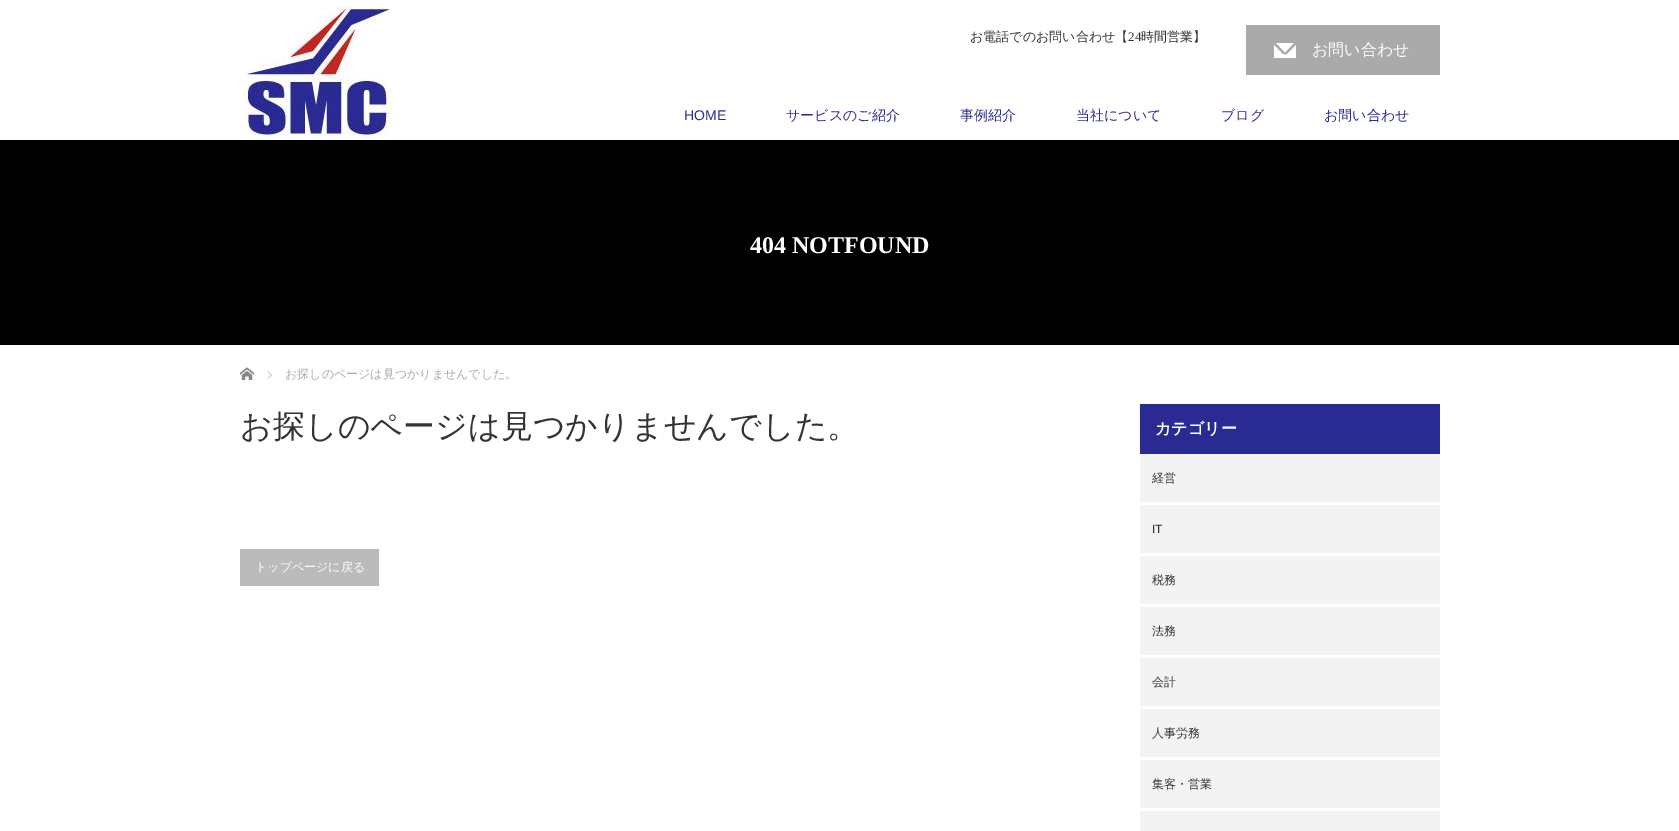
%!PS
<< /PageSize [1679 831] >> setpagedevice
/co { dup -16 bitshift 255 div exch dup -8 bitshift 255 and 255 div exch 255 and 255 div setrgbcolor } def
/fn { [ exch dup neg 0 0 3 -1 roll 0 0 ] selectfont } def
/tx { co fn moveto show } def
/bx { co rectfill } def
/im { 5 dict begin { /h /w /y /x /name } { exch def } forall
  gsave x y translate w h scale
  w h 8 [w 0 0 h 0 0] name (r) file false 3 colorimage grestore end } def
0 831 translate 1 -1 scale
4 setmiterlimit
0 0 1679 831 16#FFFFFF bx
(media/1.raw) 240 7 153 131 im
1246 25 194 50 16#AAAAAA bx
(media/2.raw) 1274 43 22 15 im
0 140 1679 205 16#000000 bx
(media/3.raw) 240 367 14 13 im
(media/4.raw) 267 371 5 8 im
240 549 139 37 16#BBBBBB bx
1140 404 300 50 16#2A2A93 bx
1140 454 300 48 16#F3F3F3 bx
1140 505 300 48 16#F3F3F3 bx
1140 556 300 48 16#F3F3F3 bx
1140 607 300 48 16#F3F3F3 bx
1140 658 300 48 16#F3F3F3 bx
1140 709 300 48 16#F3F3F3 bx
1140 760 300 48 16#F3F3F3 bx
1140 811 300 20 16#F3F3F3 bx
(お電話でのお問い合わせ【) 970 41 /WenQuanYiZenHei-Medium 13 16#333333 tx
(24) 1128 41 /LiberationSerif-Regular 13 16#333333 tx
(時間営業】) 1141 41 /WenQuanYiZenHei-Medium 13 16#333333 tx
(お問い合わせ) 1312 55 /WenQuanYiZenHei-Medium 16 16#FFFFFF tx
(HOME) 684 120 /LiberationSans-Regular 14 16#2A2A93 tx
(サービスのご紹介) 786 120 /WenQuanYiZenHei-Medium 14 16#2A2A93 tx
(事例紹介) 960 120 /WenQuanYiZenHei-Medium 14 16#2A2A93 tx
(当社について) 1076 120 /WenQuanYiZenHei-Medium 14 16#2A2A93 tx
(ブログ) 1221 120 /WenQuanYiZenHei-Medium 14 16#2A2A93 tx
(お問い合わせ) 1324 120 /WenQuanYiZenHei-Medium 14 16#2A2A93 tx
(404 NOTFOUND) 750 253 /LiberationSerif-Bold 24 16#FFFFFF tx
(お探しのページは見つかりませんでした。) 285 378 /WenQuanYiZenHei-Medium 12 16#AAAAAA tx
(お探しのページは見つかりませんでした。) 240 437 /WenQuanYiZenHei-Medium 32 16#333333 tx
(トップページに戻る) 255 571 /WenQuanYiZenHei-Medium 12 16#FFFFFF tx
(カテゴリー) 1155 434 /WenQuanYiZenHei-Bold 16 16#FFFFFF tx
(経営) 1152 482 /WenQuanYiZenHei-Medium 12 16#333333 tx
(IT) 1152 533 /LiberationSans-Regular 12 16#333333 tx
(税務) 1152 584 /WenQuanYiZenHei-Medium 12 16#333333 tx
(法務) 1152 635 /WenQuanYiZenHei-Medium 12 16#333333 tx
(会計) 1152 686 /WenQuanYiZenHei-Medium 12 16#333333 tx
(人事労務) 1152 737 /WenQuanYiZenHei-Medium 12 16#333333 tx
(集客・営業) 1152 788 /WenQuanYiZenHei-Medium 12 16#333333 tx
showpage
